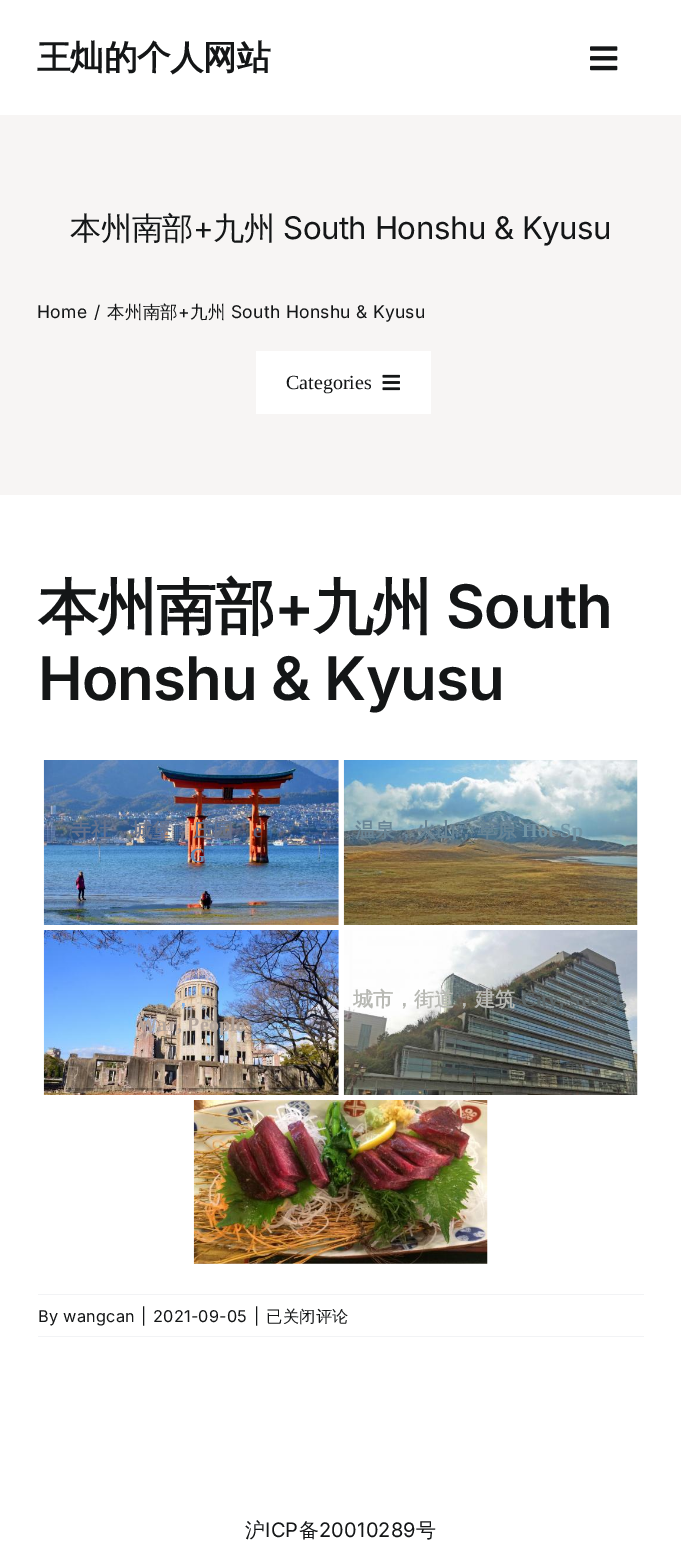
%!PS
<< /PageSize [681 1567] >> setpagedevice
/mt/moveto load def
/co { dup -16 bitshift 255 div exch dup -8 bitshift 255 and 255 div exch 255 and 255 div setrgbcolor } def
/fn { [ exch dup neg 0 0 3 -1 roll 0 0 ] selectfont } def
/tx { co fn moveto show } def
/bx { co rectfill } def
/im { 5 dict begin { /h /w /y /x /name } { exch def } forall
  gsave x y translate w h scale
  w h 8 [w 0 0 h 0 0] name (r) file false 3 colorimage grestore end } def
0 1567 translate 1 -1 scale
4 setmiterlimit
0 0 681 1567 16#FFFFFF bx
(media/1.raw) 590 46 28 25 im
0 115 681 380 16#F7F5F4 bx
256 351 175 63 16#FFFFFF bx
(media/2.raw) 382 374 18 17 im
(media/3.raw) 43 760 296 165 im
(media/4.raw) 343 760 295 165 im
(media/5.raw) 343 930 295 165 im
(media/6.raw) 43 930 296 165 im
(media/7.raw) 193 1100 295 164 im
38 1294 606 1 16#F2F3F5 bx
38 1336 606 1 16#F2F3F5 bx
/WenQuanYiZenHei-Bold 33.75 fn
16#141617 co
37 69 mt -.5 0 (王灿的个人网站) ashow
/WenQuanYiZenHei-Medium 31.25 fn
70 239 mt -.5 0 (本州南部) ashow
/Inter-Regular 31.25 fn
193 239 mt -.5 0 (+) ashow
/WenQuanYiZenHei-Medium 31.25 fn
213 239 mt -.5 0 (九州) ashow
/Inter-Regular 31.25 fn
283 239 mt -.5 0 (South Honshu & Kyusu) ashow
/Inter-Regular 17.5 fn
37 318 mt .25 0 (Home) ashow
94 318 mt .25 0 (/) ashow
/WenQuanYiZenHei-Medium 17.5 fn
107 318 mt .25 0 (本州南部) ashow
/Inter-Regular 17.5 fn
178 318 mt .25 0 (+) ashow
/WenQuanYiZenHei-Medium 17.5 fn
190 318 mt .25 0 (九州) ashow
/Inter-Regular 17.5 fn
231 318 mt .25 0 (South Honshu & Kyusu) ashow
(Categories) 286 389 /LiberationSerif-Regular 20 16#141617 tx
/WenQuanYiZenHei-Bold 60 fn
38 628 mt -.9 0 (本州南部) ashow
/Inter-SemiBold 60 fn
274 628 mt -.9 0 (+) ashow
/WenQuanYiZenHei-Bold 60 fn
313 628 mt -.9 0 (九州) ashow
/Inter-SemiBold 60 fn
446 628 mt -.9 0 (South) ashow
38 700 mt -.9 0 (Honshu & Kyusu) ashow
/WenQuanYiZenHei-Bold 20 fn
16#67738D co
71 837 mt .25 0 (寺社，城堡，庄园) ashow
/LiberationSerif-Bold 20 fn
16#575870 co
253 837 mt .25 0 (e) ashow
16#668BB4 co
190 862 mt .25 0 (G) ashow
/WenQuanYiZenHei-Bold 20 fn
16#698595 co
355 837 mt .25 0 (温泉，火山，草原) ashow
/LiberationSerif-Bold 20 fn
16#7295A5 co
522 837 mt .25 0 (Hot Sp) ashow
/WenQuanYiZenHei-Bold 20 fn
16#B8B9B4 co
353 1006 mt .25 0 (城市，街道，建筑) ashow
/LiberationSerif-Bold 20 fn
16#5D6769 co
521 1006 mt .25 0 (City, Street,) ashow
/WenQuanYiZenHei-Bold 20 fn
16#81B1E9 co
173 1006 mt .25 0 (，) ashow
/LiberationSerif-Bold 20 fn
16#B3A59C co
137 1031 mt .25 0 (War, People) ashow
/Inter-Regular 16.25 fn
16#141617 co
38 1322 mt .25 0 (By wangcan) ashow
141 1322 mt .25 0 (|) ashow
153 1322 mt .25 0 (2021-09-05) ashow
254 1322 mt .25 0 (|) ashow
/WenQuanYiZenHei-Medium 16.25 fn
266 1322 mt .25 0 (已关闭评论) ashow
/WenQuanYiZenHei-Medium 20 fn
245 1537 mt .25 0 (沪) ashow
/Inter-Regular 20 fn
265 1537 mt .25 0 (ICP) ashow
/WenQuanYiZenHei-Medium 20 fn
299 1537 mt .25 0 (备) ashow
/Inter-Regular 20 fn
319 1537 mt .25 0 (20010289) ashow
/WenQuanYiZenHei-Medium 20 fn
416 1537 mt .25 0 (号) ashow
showpage
